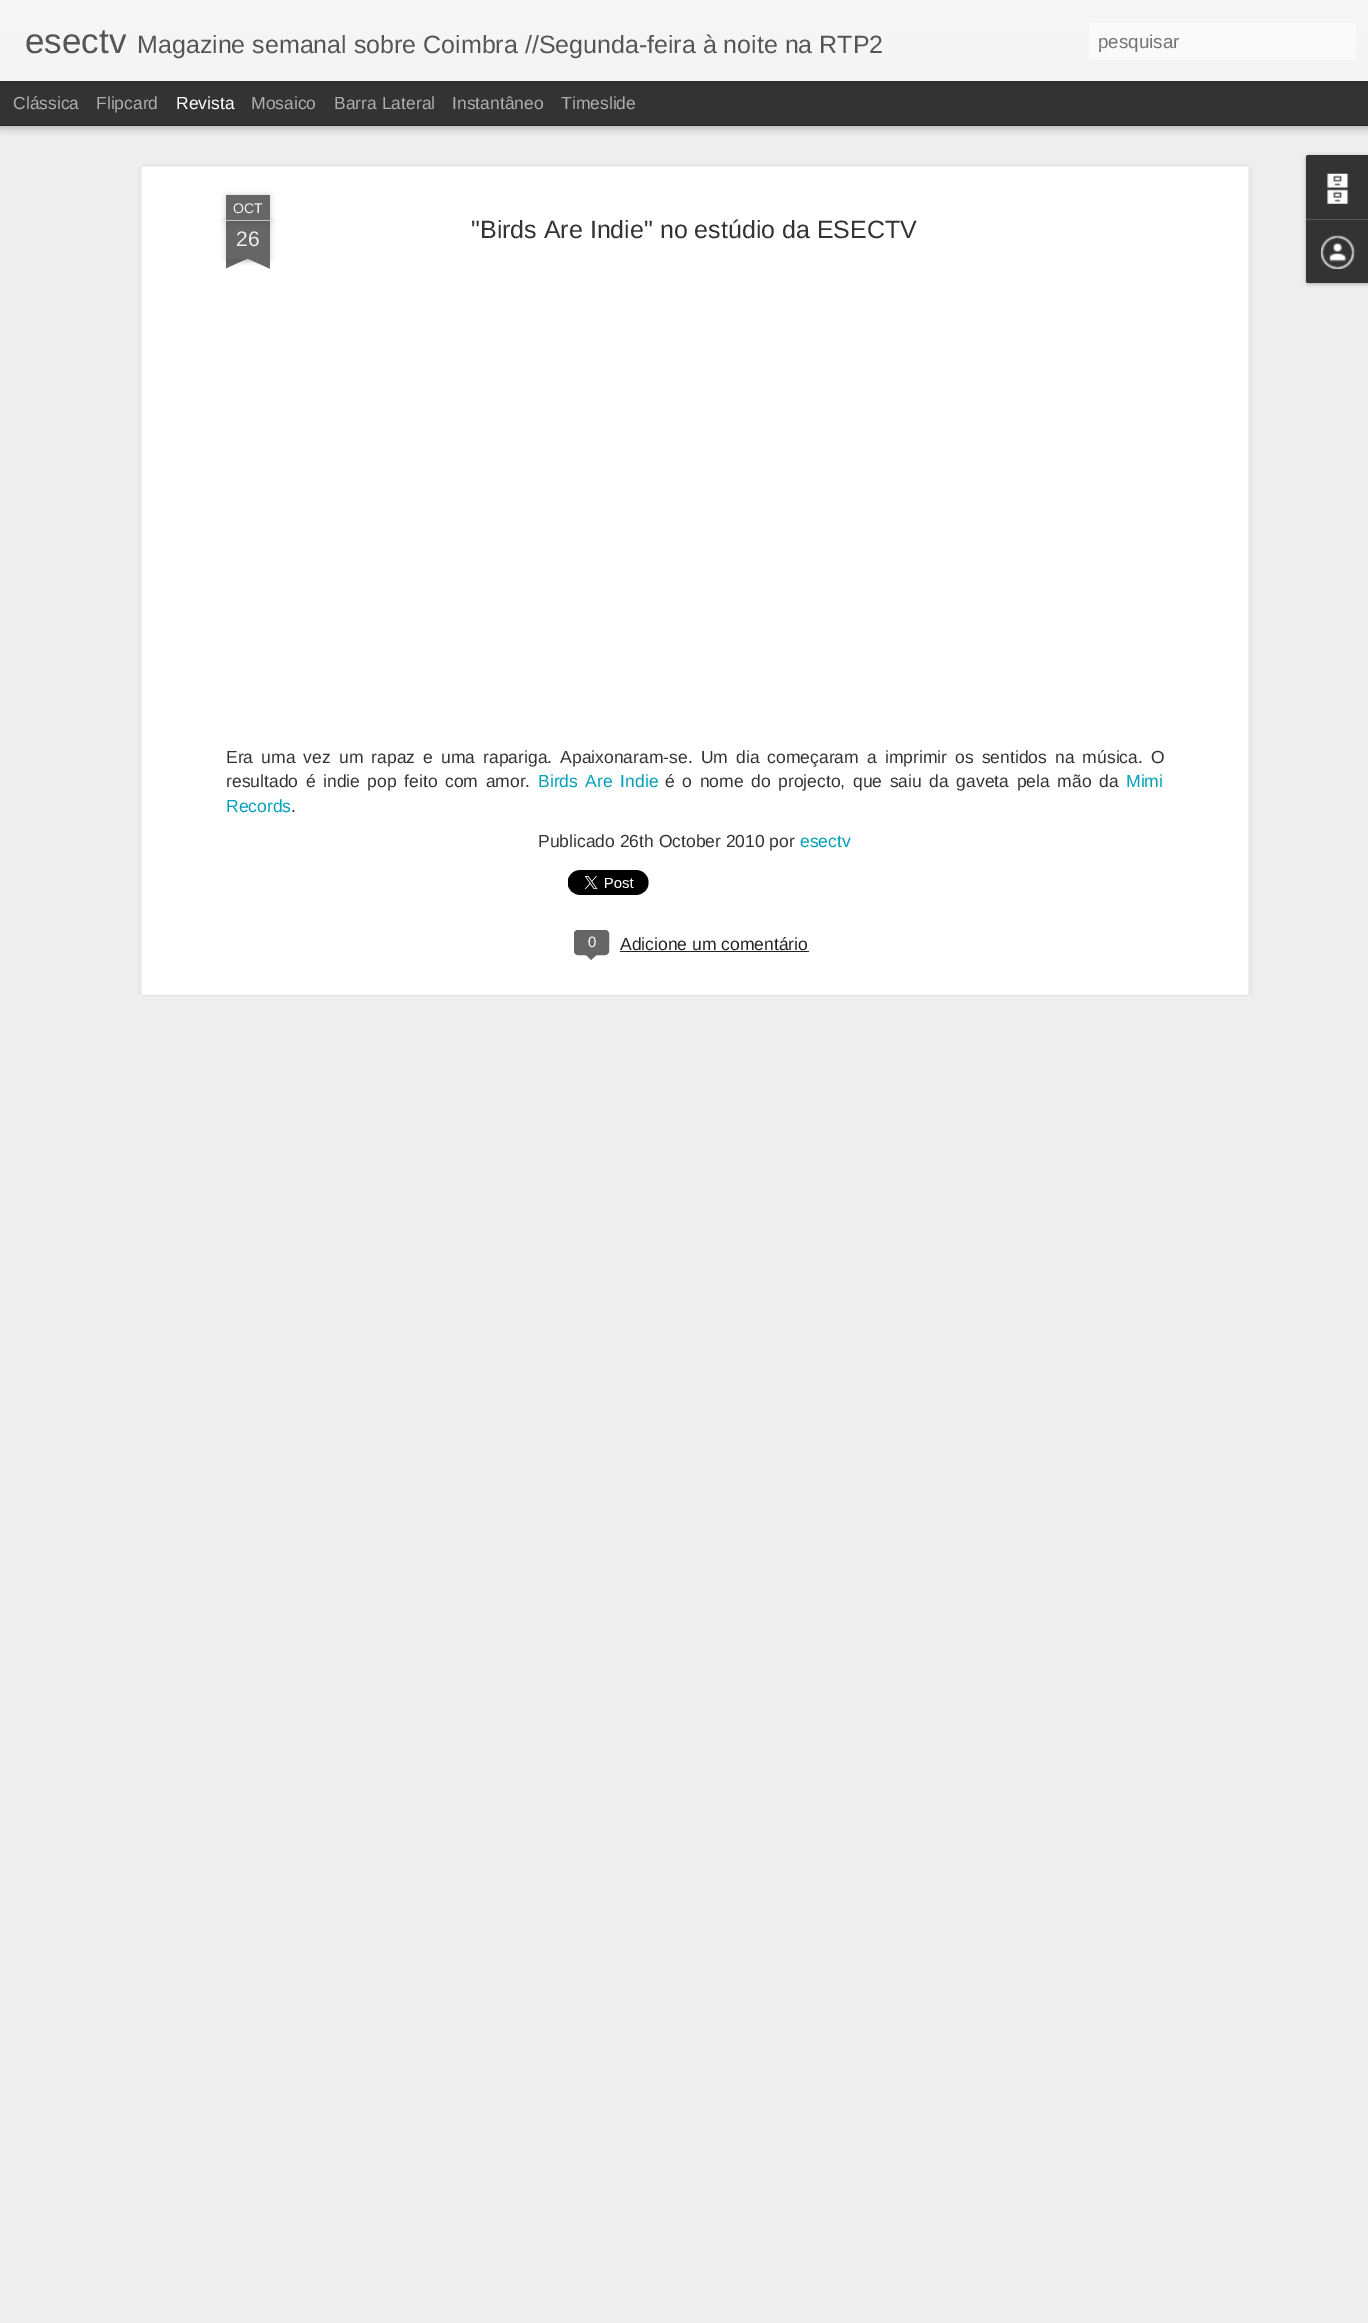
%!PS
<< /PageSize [1368 2323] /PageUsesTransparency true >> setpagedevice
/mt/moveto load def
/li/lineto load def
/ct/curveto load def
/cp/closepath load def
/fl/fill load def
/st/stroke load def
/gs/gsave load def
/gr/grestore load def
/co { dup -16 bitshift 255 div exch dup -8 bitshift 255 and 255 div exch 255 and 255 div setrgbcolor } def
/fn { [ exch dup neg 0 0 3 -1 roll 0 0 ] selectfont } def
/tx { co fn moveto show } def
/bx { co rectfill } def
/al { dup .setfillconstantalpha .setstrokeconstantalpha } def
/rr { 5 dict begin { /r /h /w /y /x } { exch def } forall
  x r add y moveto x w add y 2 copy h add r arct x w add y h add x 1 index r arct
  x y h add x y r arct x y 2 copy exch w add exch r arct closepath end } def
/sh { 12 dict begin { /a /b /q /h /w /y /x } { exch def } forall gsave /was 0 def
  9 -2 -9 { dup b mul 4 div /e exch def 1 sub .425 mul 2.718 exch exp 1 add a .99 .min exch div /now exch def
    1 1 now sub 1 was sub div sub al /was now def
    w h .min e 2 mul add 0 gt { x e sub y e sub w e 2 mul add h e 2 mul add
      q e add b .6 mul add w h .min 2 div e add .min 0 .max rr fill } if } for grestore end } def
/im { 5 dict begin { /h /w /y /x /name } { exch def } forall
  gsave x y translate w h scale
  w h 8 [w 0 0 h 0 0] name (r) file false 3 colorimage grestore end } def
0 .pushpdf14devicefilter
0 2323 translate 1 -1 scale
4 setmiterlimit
0 0 1368 2323 16#333333 bx
0 126 1368 2197 16#EEEEEE bx
16#000000 co
0 81 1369 44 0 5 .5 sh
0 81 1368 44 16#333333 bx
16#000000 co
0 0 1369 81 0 3 .3 sh
gs 0 0 mt 1368 0 li 1368 81 li 0 81 li cp clip newpath
<< /ShadingType 2 /ColorSpace /DeviceRGB /Coords [0 0 0 81] /Extend [true true] /Function << /FunctionType 2 /Domain [0 1] /C0 [.969 .969 .969] /C1 [.957 .957 .957] /N 1 >> >> shfill gr
16#FAFAFA co
1089 23 267 37 4 rr fl
139 164 1112 834 16#FFFFFF bx
(media/1.raw) 138 164 1114 834 im
16#000000 co
226 221 44 38 0 3 .2 sh
226 221 44 38 16#666666 bx
16#000000 co
226 195 44 26 1 3 .2 sh
16#666666 co
227 195 mt 269 195 li 269.5 195 270 195.5 270 196 ct 270 221 li 226 221 li 226 196 li 226 195.5 226.5 195 227 195 ct cp fl
226 220 44 1 16#C2C2C2 bx
gs
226 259 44 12 rectclip
16#000000 co
215 246 63 13 0 3 .2 sh
gr
gs
226 259 44 12 rectclip
16#666666 co
215 260 mt 271 234 li 277 245 li 220 271 li cp fl
gr
gs
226 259 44 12 rectclip
16#000000 co
219 246 62 13 0 3 .2 sh
gr
gs
226 259 44 12 rectclip
16#666666 co
224 234 mt 280 260 li 275 271 li 218 245 li cp fl
gr
(media/2.raw) 568 870 81 25 im
16#666666 co
574.5 930.5 34 24 3.5 rr gs fl gr
st
585 954 mt 597.5 954 li 591 960 li cp fl
620 951 189 1 16#222222 bx
16#000000 co
1306 156 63 128 2.5 2 .3 sh
16#333333 co
1308.5 155 mt 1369 155 li 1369 219 li 1306 219 li 1306 157.5 li 1306 156 1307 155 1308.5 155 ct cp fl
(media/3.raw) 1327 173 22 31 im
1306 219 mt 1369 219 li 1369 283 li 1308.5 283 li 1307 283 1306 282 1306 280.5 ct cp fl
1306 219 62 1 16#585858 bx
(media/4.raw) 1321 235 34 34 im
(esectv) 25 53 /LiberationSans-Regular 35 16#555555 tx
(Magazine semanal sobre Coimbra //Segunda-feira à noite na RTP2) 137 53 /LiberationSans-Regular 25 16#555555 tx
(pesquisar) 1098 48 /LiberationSans-Regular 18.75 16#757575 tx
(Clássica) 13 109 /LiberationSans-Regular 17.5 16#ADADAD tx
(Flipcard) 96 109 /LiberationSans-Regular 17.5 16#ADADAD tx
(Revista) 176 109 /LiberationSans-Regular 17.5 16#FFFFFF tx
(Mosaico) 251 109 /LiberationSans-Regular 17.5 16#ADADAD tx
(Barra Lateral) 334 109 /LiberationSans-Regular 17.5 16#ADADAD tx
(Instantâneo) 452 109 /LiberationSans-Regular 17.5 16#ADADAD tx
(Timeslide) 561 109 /LiberationSans-Regular 17.5 16#ADADAD tx
(OCT) 233 213 /LiberationSans-Regular 14 16#EEEEEE tx
(26) 236 246 /LiberationSans-Regular 21 16#EEEEEE tx
("Birds Are Indie" no estúdio da ESECTV) 471 238 /LiberationSans-Regular 25 16#333333 tx
/LiberationSans-Regular 17.5 fn
226 763 mt 3.25 0 32 (Era uma vez um rapaz e uma rapariga. Apaixonaram-se. Um dia começaram a imprimir os sentidos na música. O) widthshow
226 787 mt 2.75 0 32 (resultado é indie pop feito com amor.) widthshow
16#009EB8 co
538 787 mt 2.75 0 32 (Birds Are Indie) widthshow
16#333333 co
665 787 mt 2.75 0 32 (é o nome do projecto, que saiu da gaveta pela mão da) widthshow
(Mimi) 1126 787 /LiberationSans-Regular 17.5 16#009EB8 tx
(Records) 226 812 /LiberationSans-Regular 17.5 16#009EB8 tx
(.) 291 812 /LiberationSans-Regular 17.5 16#333333 tx
(Publicado 26th October 2010 por) 538 847 /LiberationSans-Regular 17.5 16#333333 tx
(esectv) 800 847 /LiberationSans-Regular 17.5 16#009EB8 tx
(0) 588 947 /LiberationSans-Regular 15 16#FFFFFF tx
(Adicione um comentário) 620 950 /LiberationSans-Regular 17.5 16#222222 tx
.poppdf14devicefilter showpage
